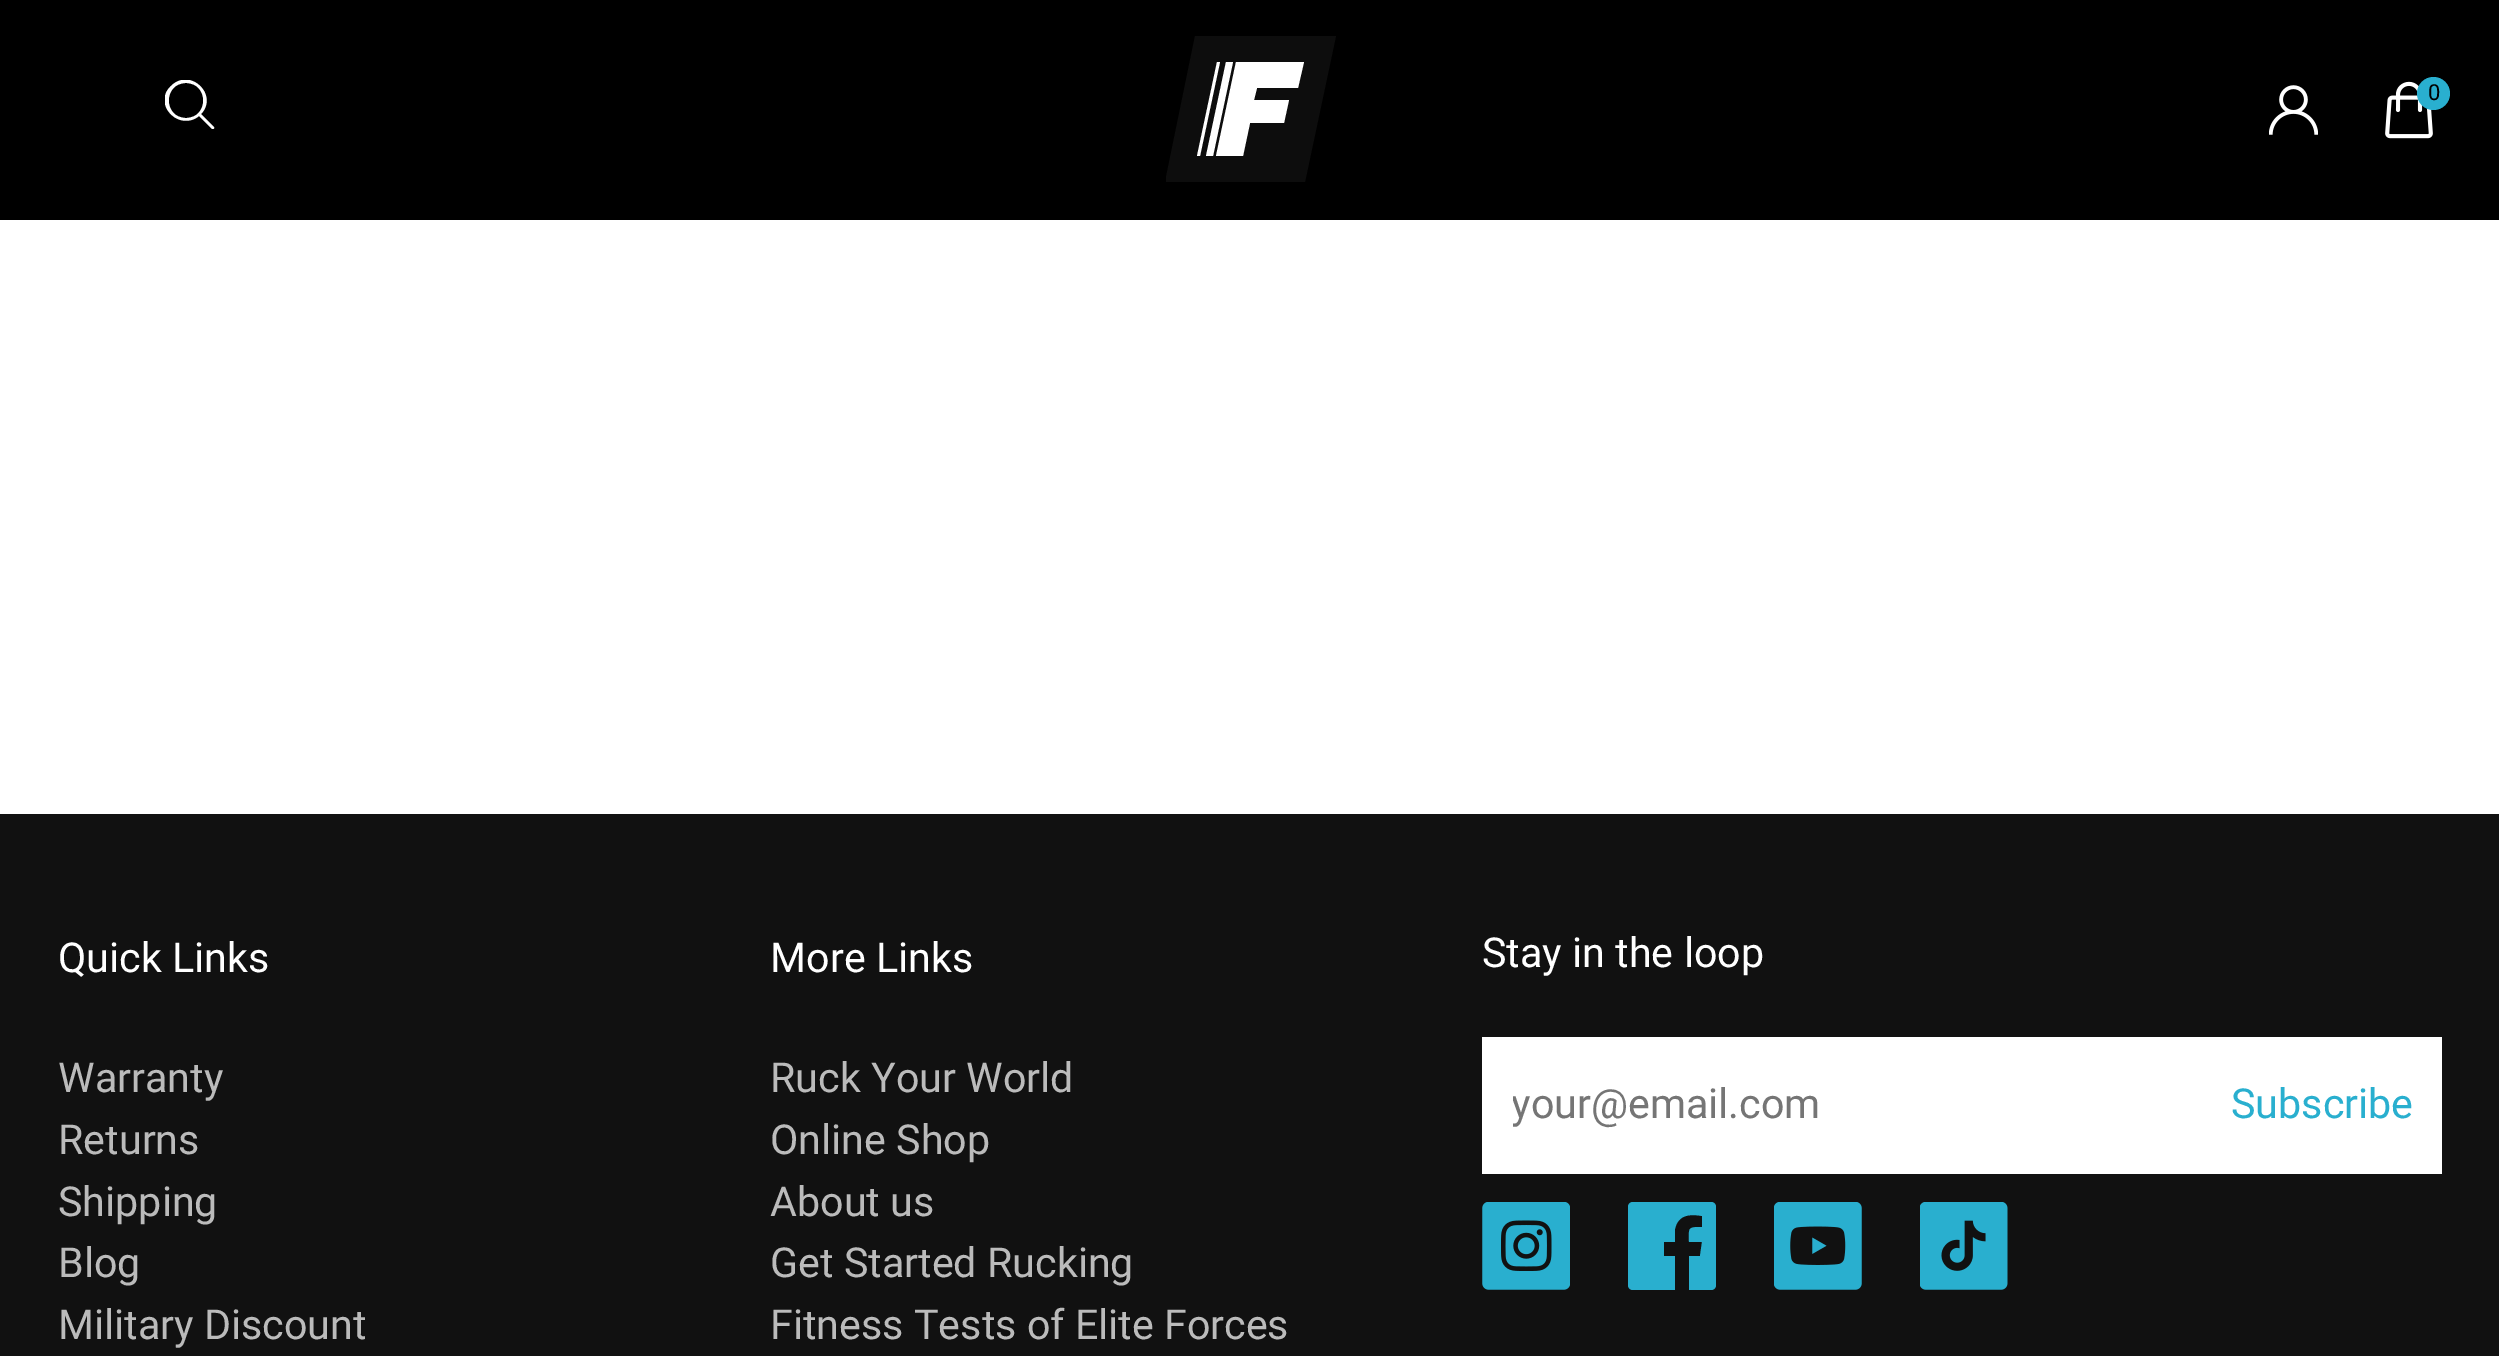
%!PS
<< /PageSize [2499 1356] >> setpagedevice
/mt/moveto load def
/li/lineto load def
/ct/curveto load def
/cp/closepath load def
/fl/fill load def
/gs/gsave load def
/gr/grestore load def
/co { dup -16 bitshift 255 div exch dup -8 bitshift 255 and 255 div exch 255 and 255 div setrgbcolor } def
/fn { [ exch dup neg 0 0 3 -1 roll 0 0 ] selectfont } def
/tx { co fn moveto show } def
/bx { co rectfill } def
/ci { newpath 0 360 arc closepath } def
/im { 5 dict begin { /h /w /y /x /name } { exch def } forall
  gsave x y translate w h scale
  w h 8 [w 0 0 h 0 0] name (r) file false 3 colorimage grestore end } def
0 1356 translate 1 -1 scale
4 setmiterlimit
0 0 2499 1356 16#FFFFFF bx
0 0 2499 220 16#000000 bx
gs
165 80 50 49 rectclip
16#FFFFFF co
214 127 mt 201 114 li 219 95 190 67 171 86 ct 152 104 179 132 199 116 ct 212 129 li 213 130 215 128 214 127 ct cp 186 118 mt 163 118 163 83 186 83 ct 209 83 209 118 186 118 ct cp fl
gr
gs
1166 36 173 148 rectclip
16#0D0D0D co
1195 36 mt 1165 182 li 1305 182 li 1336 36 li cp fl
gr
16#FFFFFF co
1289 100 mt 1284 123 li 1250 123 li 1243 156 li 1216 156 li 1236 62 li 1304 62 li 1298 88 li 1257 88 li 1254 100 li cp fl
1217 62 mt 1197 156 li 1200 156 li 1220 62 li cp fl
1226 62 mt 1206 156 li 1213 156 li 1233 62 li cp fl
(media/1.raw) 2269 85 49 50 im
(media/2.raw) 2385 81 48 58 im
16#29AFCF co
2433.5 93.5 16.5 ci fl
0 814 2499 542 16#111111 bx
1482 1037 960 137 16#FFFFFF bx
(media/3.raw) 1482 1202 88 88 im
16#29AFCF co
1711 1202 mt 1633 1202 li 1630 1202 1628 1204 1628 1207 ct 1628 1285 li 1628 1288 1630 1290 1633 1290 ct 1675 1290 li 1675 1256 li 1664 1256 li 1664 1242 li 1675 1242 li 1675 1229 li 1678 1214 1691 1214 1702 1216 ct 1702 1227 li 1687 1227 1689 1228 1689 1242 ct 1702 1242 li 1700 1256 li 1689 1256 li 1689 1290 li 1711 1290 li 1714 1290 1716 1288 1716 1285 ct 1716 1207 li 1716 1204 1714 1202 1711 1202 ct cp fl
(media/4.raw) 1774 1202 88 88 im
(media/5.raw) 1920 1202 88 88 im
(0) 2428 100 /Roboto-Regular 22 16#000000 tx
(Quick Links) 58 972 /Roboto-Regular 41.25 16#FFFFFF tx
(Warranty) 58 1092 /Roboto-Regular 41.25 16#BBBBBB tx
(Returns) 58 1154 /Roboto-Regular 41.25 16#BBBBBB tx
(Shipping) 58 1216 /Roboto-Regular 41.25 16#BBBBBB tx
(Blog) 58 1277 /Roboto-Regular 41.25 16#BBBBBB tx
(Military Discount) 58 1339 /Roboto-Regular 41.25 16#BBBBBB tx
(More Links) 770 972 /Roboto-Regular 41.25 16#FFFFFF tx
(Ruck Your World) 770 1092 /Roboto-Regular 41.25 16#BBBBBB tx
(Online Shop) 770 1154 /Roboto-Regular 41.25 16#BBBBBB tx
(About us) 770 1216 /Roboto-Regular 41.25 16#BBBBBB tx
(Get Started Rucking) 770 1277 /Roboto-Regular 41.25 16#BBBBBB tx
(Fitness Tests of Elite Forces) 770 1339 /Roboto-Regular 41.25 16#BBBBBB tx
(Stay in the loop) 1482 967 /Roboto-Regular 41.25 16#FFFFFF tx
gs
1513 1081 902 49 rectclip
(your@email.com) 1511 1118 /Roboto-Regular 41.25 16#757575 tx
gr
(Subscribe) 2231 1118 /Roboto-Regular 41.25 16#29AFCF tx
showpage
